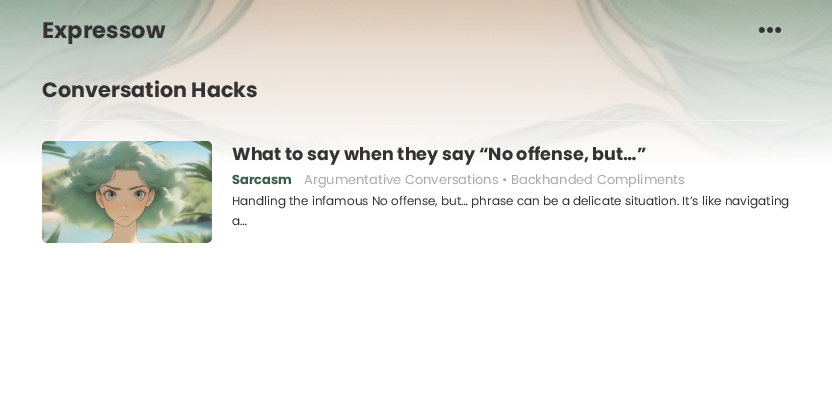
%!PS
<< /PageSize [832 401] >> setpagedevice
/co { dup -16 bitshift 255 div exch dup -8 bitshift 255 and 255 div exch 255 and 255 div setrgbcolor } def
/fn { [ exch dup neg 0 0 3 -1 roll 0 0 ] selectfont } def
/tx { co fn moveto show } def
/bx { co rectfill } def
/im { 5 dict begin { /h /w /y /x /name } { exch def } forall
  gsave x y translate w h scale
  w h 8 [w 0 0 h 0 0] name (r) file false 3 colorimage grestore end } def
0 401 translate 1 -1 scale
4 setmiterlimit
0 0 832 401 16#FFFFFF bx
(media/1.raw) 0 0 832 397 im
(media/2.raw) 758 27 24 6 im
42 120 748 1 16#F0F0F0 bx
(media/3.raw) 42 141 170 102 im
(Expressow) 42 38 /Poppins-Bold 22.5 16#333333 tx
(Conversation Hacks) 42 97 /Poppins-Bold 20.75 16#333333 tx
(What to say when they say “No offense, but…”) 232 160 /Poppins-Bold 17.6 16#333333 tx
(Sarcasm) 232 184 /Poppins-Bold 13 16#3A5F4B tx
(Argumentative Conversations • Backhanded Compliments) 304 184 /Poppins-Regular 13 16#AAAAAA tx
(Handling the infamous No offense, but… phrase can be a delicate situation. It’s like navigating) 232 205 /Poppins-Regular 12 16#333333 tx
(a…) 232 225 /Poppins-Regular 12 16#333333 tx
showpage
